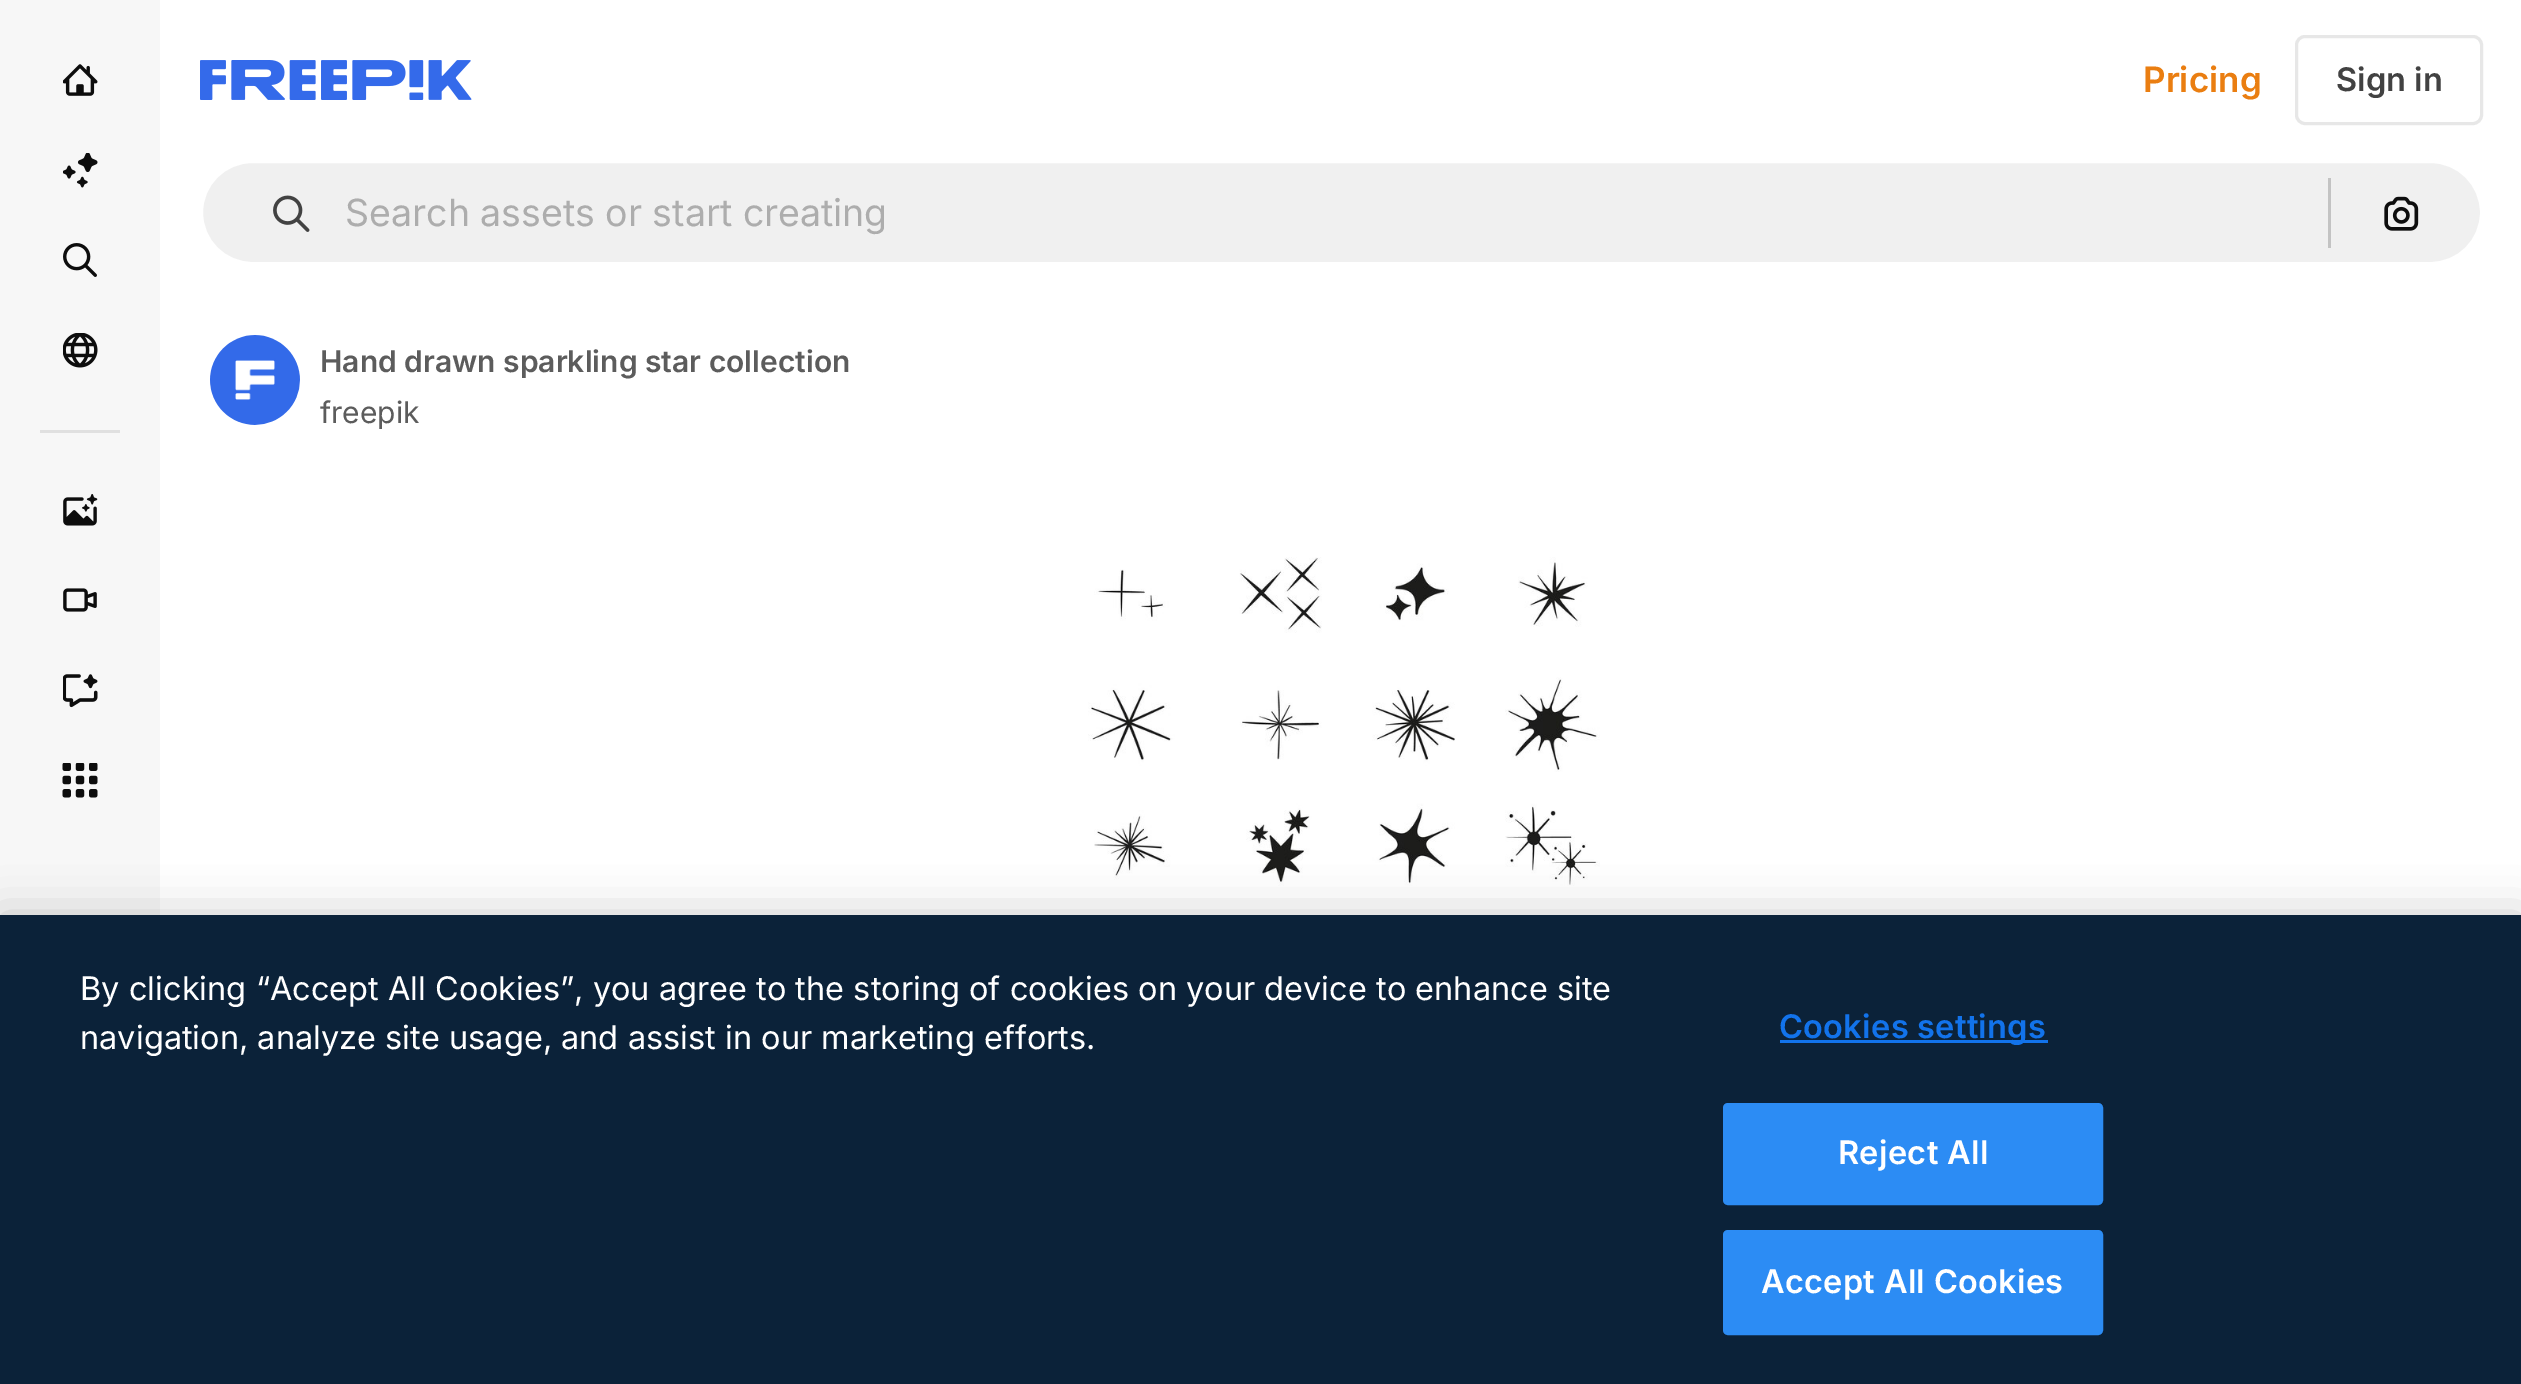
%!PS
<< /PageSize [2521 1384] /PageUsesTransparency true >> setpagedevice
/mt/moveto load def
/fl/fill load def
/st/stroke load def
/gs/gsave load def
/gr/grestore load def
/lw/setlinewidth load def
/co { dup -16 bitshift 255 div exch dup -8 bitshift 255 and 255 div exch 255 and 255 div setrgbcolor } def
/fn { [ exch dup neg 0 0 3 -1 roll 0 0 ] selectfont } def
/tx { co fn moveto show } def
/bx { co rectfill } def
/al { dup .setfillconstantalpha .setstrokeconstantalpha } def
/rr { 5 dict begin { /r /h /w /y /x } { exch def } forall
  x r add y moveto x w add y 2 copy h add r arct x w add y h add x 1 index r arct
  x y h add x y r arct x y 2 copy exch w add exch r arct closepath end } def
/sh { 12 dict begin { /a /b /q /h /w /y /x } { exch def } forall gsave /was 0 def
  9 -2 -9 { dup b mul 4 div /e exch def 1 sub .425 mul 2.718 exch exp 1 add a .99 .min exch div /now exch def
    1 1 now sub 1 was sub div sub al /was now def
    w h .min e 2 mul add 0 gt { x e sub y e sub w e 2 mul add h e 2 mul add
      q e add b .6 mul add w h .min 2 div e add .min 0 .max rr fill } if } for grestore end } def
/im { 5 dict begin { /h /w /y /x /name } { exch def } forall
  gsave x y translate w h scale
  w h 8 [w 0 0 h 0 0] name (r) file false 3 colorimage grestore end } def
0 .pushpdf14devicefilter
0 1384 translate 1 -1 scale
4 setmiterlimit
0 0 2521 1384 16#FFFFFF bx
0 0 160 915 16#F7F7F7 bx
(media/1.raw) 63 64 35 32 im
(media/2.raw) 63 153 35 35 im
(media/3.raw) 63 243 34 34 im
(media/4.raw) 63 333 35 35 im
40 430 80 3 16#E0E0E0 bx
(media/5.raw) 63 494 35 32 im
(media/6.raw) 63 588 34 24 im
(media/7.raw) 63 674 35 34 im
(media/8.raw) 62 763 36 35 im
(media/9.raw) 200 60 272 40 im
16#E7E7E7 co
3 lw
2296.5 36.5 185 87 8.5 rr st
16#F0F0F0 co
201.5 161.5 2280 102 51 rr gs fl gr
16#FFFFFF co
st
(media/10.raw) 273 195 37 37 im
2328 178 3 70 16#C3C3C3 bx
(media/11.raw) 2384 196 35 35 im
(media/12.raw) 210 335 90 90 im
(media/13.raw) 1088 557 512 358 im
16#000000 co
0 915 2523 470 0 22.5 .2 sh
0 915 2521 469 16#0B2239 bx
1780 1040 268 3 16#1273EB bx
16#2C8CF4 co
1724.5 1104.5 377 99 3.5 rr gs fl gr
st
1724.5 1231.5 377 102 3.5 rr gs fl gr
st
(Pricing) 2143 92 /Inter-SemiBold 35 16#EA7E11 tx
(Sign in) 2336 91 /Inter-SemiBold 32.5 16#424242 tx
(Search assets or start creating) 345 226 /Inter-Regular 37.5 16#ADADAD tx
(Hand drawn sparkling star collection) 320 372 /Inter-SemiBold 30 16#5C5C5C tx
(freepik) 320 423 /Inter-Regular 30 16#5C5C5C tx
(By clicking “Accept All Cookies”, you agree to the storing of cookies on your device to enhance site) 80 1000 /Inter-Regular 32.5 16#FFFFFF tx
(navigation, analyze site usage, and assist in our marketing efforts.) 80 1049 /Inter-Regular 32.5 16#FFFFFF tx
/Inter-SemiBold 32.5 fn
16#1273EB co
1779 1038 mt .3 0 (Cookies settings) ashow
16#FFFFFF co
1838 1164 mt .3 0 (Reject All) ashow
1761 1293 mt .3 0 (Accept All Cookies) ashow
.poppdf14devicefilter showpage
